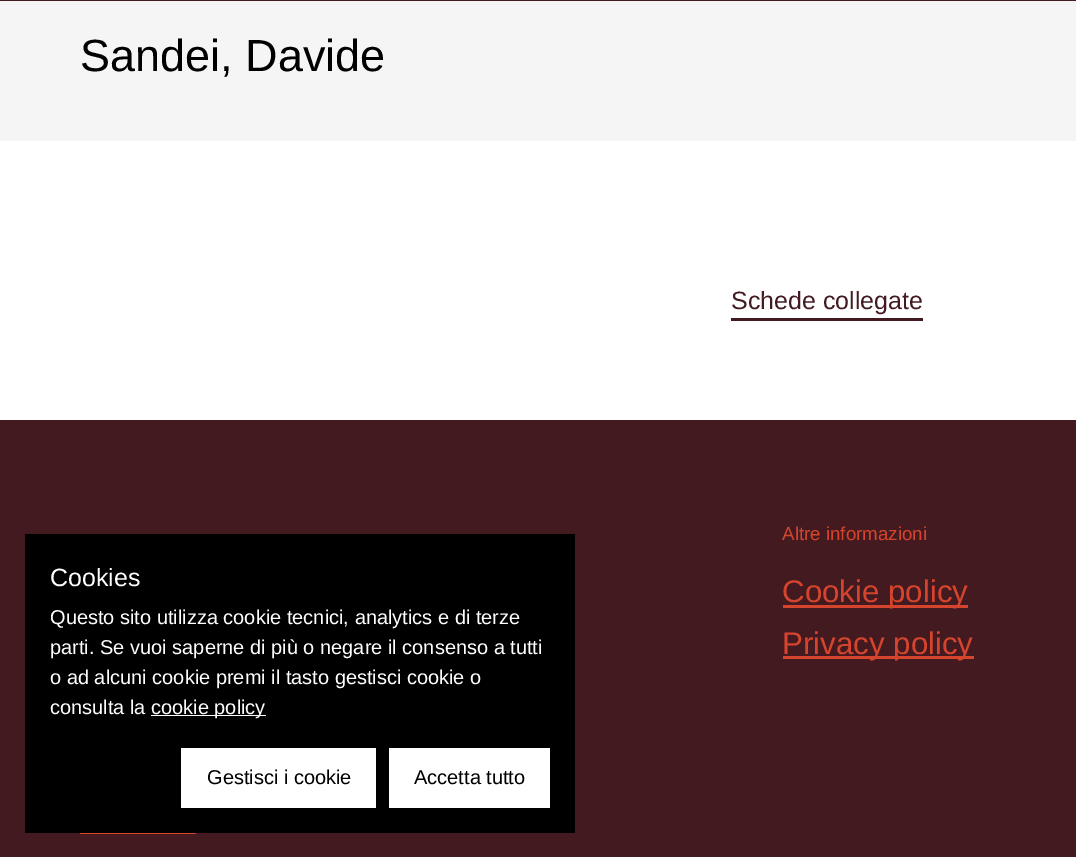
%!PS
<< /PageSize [1076 857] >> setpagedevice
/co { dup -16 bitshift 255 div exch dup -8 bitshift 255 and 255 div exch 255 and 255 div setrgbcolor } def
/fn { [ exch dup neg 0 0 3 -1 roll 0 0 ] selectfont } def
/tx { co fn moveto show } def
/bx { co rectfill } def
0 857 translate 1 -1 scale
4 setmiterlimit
0 0 1076 857 16#FFFFFF bx
0 0 1076 1 16#421A20 bx
0 1 1076 140 16#F5F5F5 bx
731 318 192 3 16#421A20 bx
0 420 1076 437 16#421A20 bx
25 534 550 299 16#000000 bx
151 715 115 1 16#FFFFFF bx
181 748 195 60 16#FFFFFF bx
389 748 161 60 16#FFFFFF bx
783 605 185 3 16#D5442D bx
783 656 191 3 16#D5442D bx
80 833 116 1 16#D5442D bx
(Sandei, Davide) 80 71 /LiberationSans-Regular 45 16#000000 tx
(Schede collegate) 731 309 /LiberationSans-Regular 25 16#421A20 tx
(Cookies) 50 586 /LiberationSans-Regular 25 16#FFFFFF tx
(Questo sito utilizza cookie tecnici, analytics e di terze) 50 624 /LiberationSans-Regular 20 16#FFFFFF tx
(parti. Se vuoi saperne di più o negare il consenso a tutti) 50 654 /LiberationSans-Regular 20 16#FFFFFF tx
(o ad alcuni cookie premi il tasto gestisci cookie o) 50 684 /LiberationSans-Regular 20 16#FFFFFF tx
(consulta la) 50 714 /LiberationSans-Regular 20 16#FFFFFF tx
(cookie policy) 151 714 /LiberationSans-Regular 20 16#FFFFFF tx
(Gestisci i cookie) 207 784 /LiberationSans-Regular 20 16#000000 tx
(Accetta tutto) 414 784 /LiberationSans-Regular 20 16#000000 tx
(Altre informazioni) 782 540 /LiberationSans-Regular 18.75 16#D5442D tx
(Cookie policy) 782 602 /LiberationSans-Regular 31.25 16#D5442D tx
(Privacy policy) 782 654 /LiberationSans-Regular 31.25 16#D5442D tx
showpage
